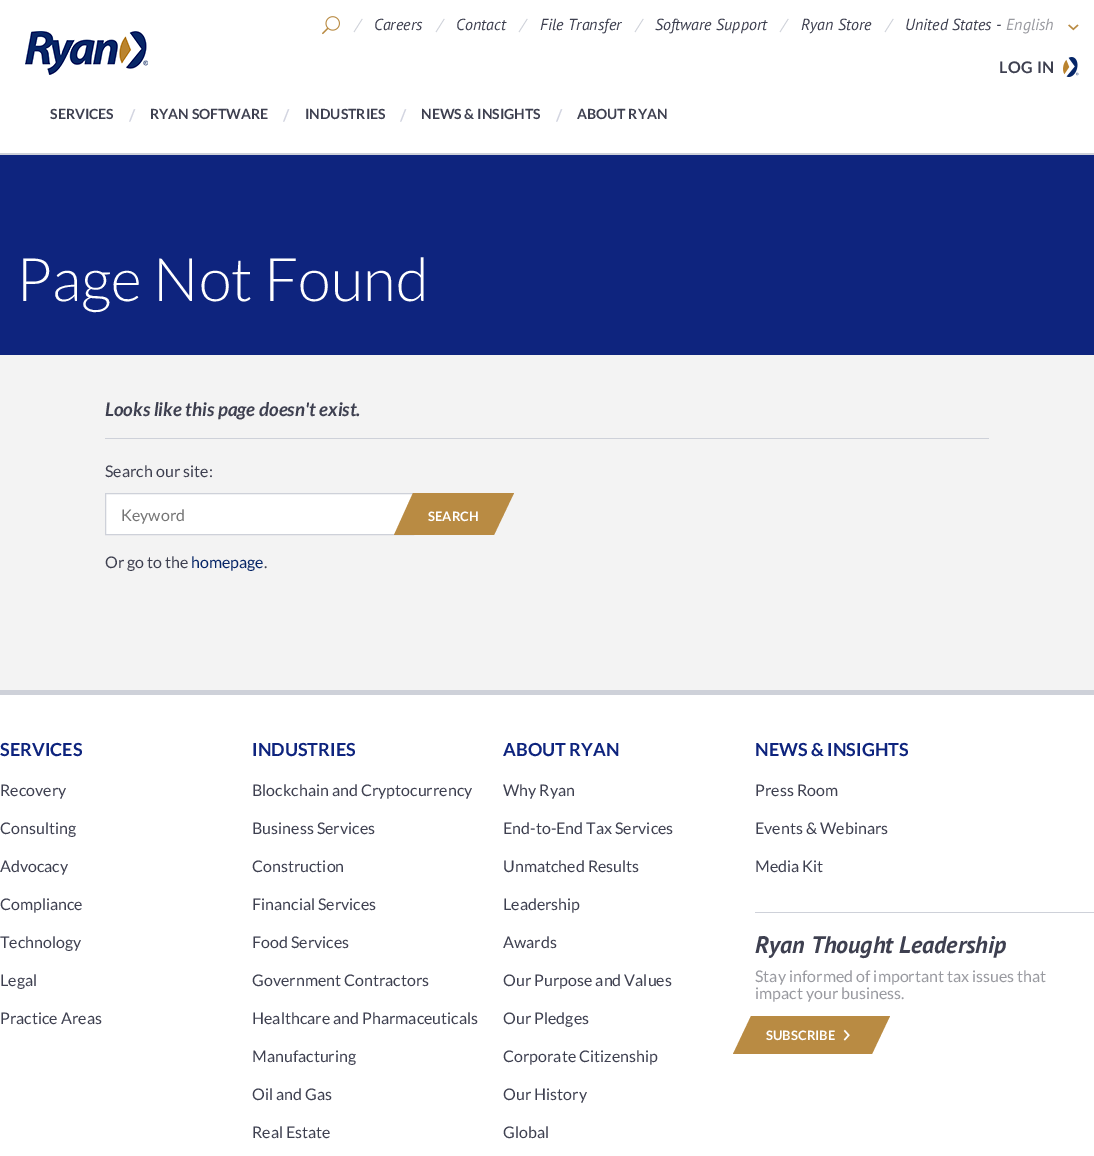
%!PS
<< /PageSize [1094 1156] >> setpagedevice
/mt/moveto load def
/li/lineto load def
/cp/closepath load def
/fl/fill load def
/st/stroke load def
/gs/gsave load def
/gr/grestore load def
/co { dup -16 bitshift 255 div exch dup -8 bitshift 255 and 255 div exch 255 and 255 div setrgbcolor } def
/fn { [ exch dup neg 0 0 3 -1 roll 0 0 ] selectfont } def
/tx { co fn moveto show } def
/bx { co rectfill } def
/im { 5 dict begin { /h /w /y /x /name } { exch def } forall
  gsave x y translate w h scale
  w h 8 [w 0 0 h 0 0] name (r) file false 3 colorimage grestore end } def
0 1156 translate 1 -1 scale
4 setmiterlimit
0 0 1094 1156 16#F3F3F3 bx
0 0 1094 153 16#FFFFFF bx
0 153 1094 2 16#CED1D9 bx
(media/1.raw) 25 31 123 44 im
(media/2.raw) 322 16 18 19 im
(media/3.raw) 1068 24 11 7 im
(media/4.raw) 1063 57 16 20 im
0 155 1094 200 16#0E247E bx
105 438 884 1 16#CED1D9 bx
16#FFFFFF co
105.5 493.5 mt 413.5 493.5 li 413.5 534.5 li 105.5 534.5 li cp gs fl gr
16#CED1D9 co
st
16#B98B43 co
413 493 mt 494 493 li 474 535 li 394 535 li cp fl
433 493 mt 514 493 li 494 535 li 413 535 li cp fl
0 695 1094 461 16#FFFFFF bx
0 690 1094 5 16#CED1D9 bx
755 912 339 1 16#CED1D9 bx
16#B98B43 co
751 1016 mt 872 1016 li 854 1054 li 733 1054 li cp fl
769 1016 mt 890 1016 li 872 1054 li 751 1054 li cp fl
(media/5.raw) 843 1029 7 12 im
(/) 355 30 /PTSans-Italic 16 16#CED1D9 tx
(Careers) 374 30 /PTSans-Italic 16 16#3E4050 tx
(/) 437 30 /PTSans-Italic 16 16#CED1D9 tx
(Contact) 456 30 /PTSans-Italic 16 16#3E4050 tx
(/) 520 30 /PTSans-Italic 16 16#CED1D9 tx
(File Transfer) 540 30 /PTSans-Italic 16 16#3E4050 tx
(/) 636 30 /PTSans-Italic 16 16#CED1D9 tx
(Software Support) 655 30 /PTSans-Italic 16 16#3E4050 tx
(/) 781 30 /PTSans-Italic 16 16#CED1D9 tx
(Ryan Store) 801 30 /PTSans-Italic 16 16#3E4050 tx
(/) 886 30 /PTSans-Italic 16 16#CED1D9 tx
(United States -) 905 30 /PTSans-Italic 16 16#3E4050 tx
(English) 1006 30 /PTSans-Italic 16 16#999AA0 tx
/Lato-Bold 16 fn
16#3E4050 co
999 73 mt .5 0 (LOG IN) ashow
(SERVICES) 50 119 /Lato-Bold 14 16#3E4050 tx
(/) 129 121 /Lato-Bold 16 16#D3D5E1 tx
(RYAN SOFTWARE) 150 119 /Lato-Bold 14 16#3E4050 tx
(/) 283 121 /Lato-Bold 16 16#D3D5E1 tx
(INDUSTRIES) 305 119 /Lato-Bold 14 16#3E4050 tx
(/) 400 121 /Lato-Bold 16 16#D3D5E1 tx
(NEWS & INSIGHTS) 421 119 /Lato-Bold 14 16#3E4050 tx
(/) 556 121 /Lato-Bold 16 16#D3D5E1 tx
(ABOUT RYAN) 577 119 /Lato-Bold 14 16#3E4050 tx
(Page Not Found) 16 301 /Lato-Light 60 16#FFFFFF tx
(Looks like this page doesn't exist.) 105 416 /Lato-BoldItalic 18.75 16#3E4050 tx
(Search our site:) 105 477 /Lato-Regular 16 16#3E4050 tx
(Keyword) 121 521 /Lato-Regular 16 16#757575 tx
(SEARCH) 428 521 /Lato-Bold 13 16#FFFFFF tx
(Or go to the) 105 568 /Lato-Regular 16 16#3E4050 tx
(homepage) 191 568 /Lato-Regular 16 16#072667 tx
(.) 264 568 /Lato-Regular 16 16#3E4050 tx
(SERVICES) 0 756 /Lato-Bold 18 16#0E247E tx
(Recovery) 0 796 /Lato-Regular 16 16#3E4050 tx
(Consulting) 0 834 /Lato-Regular 16 16#3E4050 tx
(Advocacy) 0 872 /Lato-Regular 16 16#3E4050 tx
(Compliance) 0 910 /Lato-Regular 16 16#3E4050 tx
(Technology) 0 948 /Lato-Regular 16 16#3E4050 tx
(Legal) 0 986 /Lato-Regular 16 16#3E4050 tx
(Practice Areas) 0 1024 /Lato-Regular 16 16#3E4050 tx
(INDUSTRIES) 252 756 /Lato-Bold 18 16#0E247E tx
(Blockchain and Cryptocurrency) 252 796 /Lato-Regular 16 16#3E4050 tx
(Business Services) 252 834 /Lato-Regular 16 16#3E4050 tx
(Construction) 252 872 /Lato-Regular 16 16#3E4050 tx
(Financial Services) 252 910 /Lato-Regular 16 16#3E4050 tx
(Food Services) 252 948 /Lato-Regular 16 16#3E4050 tx
(Government Contractors) 252 986 /Lato-Regular 16 16#3E4050 tx
(Healthcare and Pharmaceuticals) 252 1024 /Lato-Regular 16 16#3E4050 tx
(Manufacturing) 252 1062 /Lato-Regular 16 16#3E4050 tx
(Oil and Gas) 252 1100 /Lato-Regular 16 16#3E4050 tx
(Real Estate) 252 1138 /Lato-Regular 16 16#3E4050 tx
(ABOUT RYAN) 503 756 /Lato-Bold 18 16#0E247E tx
(Why Ryan) 503 796 /Lato-Regular 16 16#3E4050 tx
(End-to-End Tax Services) 503 834 /Lato-Regular 16 16#3E4050 tx
(Unmatched Results) 503 872 /Lato-Regular 16 16#3E4050 tx
(Leadership) 503 910 /Lato-Regular 16 16#3E4050 tx
(Awards) 503 948 /Lato-Regular 16 16#3E4050 tx
(Our Purpose and Values) 503 986 /Lato-Regular 16 16#3E4050 tx
(Our Pledges) 503 1024 /Lato-Regular 16 16#3E4050 tx
(Corporate Citizenship) 503 1062 /Lato-Regular 16 16#3E4050 tx
(Our History) 503 1100 /Lato-Regular 16 16#3E4050 tx
(Global) 503 1138 /Lato-Regular 16 16#3E4050 tx
(NEWS & INSIGHTS) 755 756 /Lato-Bold 18 16#0E247E tx
(Press Room) 755 796 /Lato-Regular 16 16#3E4050 tx
(Events & Webinars) 755 834 /Lato-Regular 16 16#3E4050 tx
(Media Kit) 755 872 /Lato-Regular 16 16#3E4050 tx
(Ryan Thought Leadership) 755 953 /PTSans-BoldItalic 24 16#3E4050 tx
(Stay informed of important tax issues that) 755 982 /Lato-Regular 16 16#999AA0 tx
(impact your business.) 755 999 /Lato-Regular 16 16#999AA0 tx
(SUBSCRIBE) 766 1040 /Lato-Bold 13 16#FFFFFF tx
showpage
